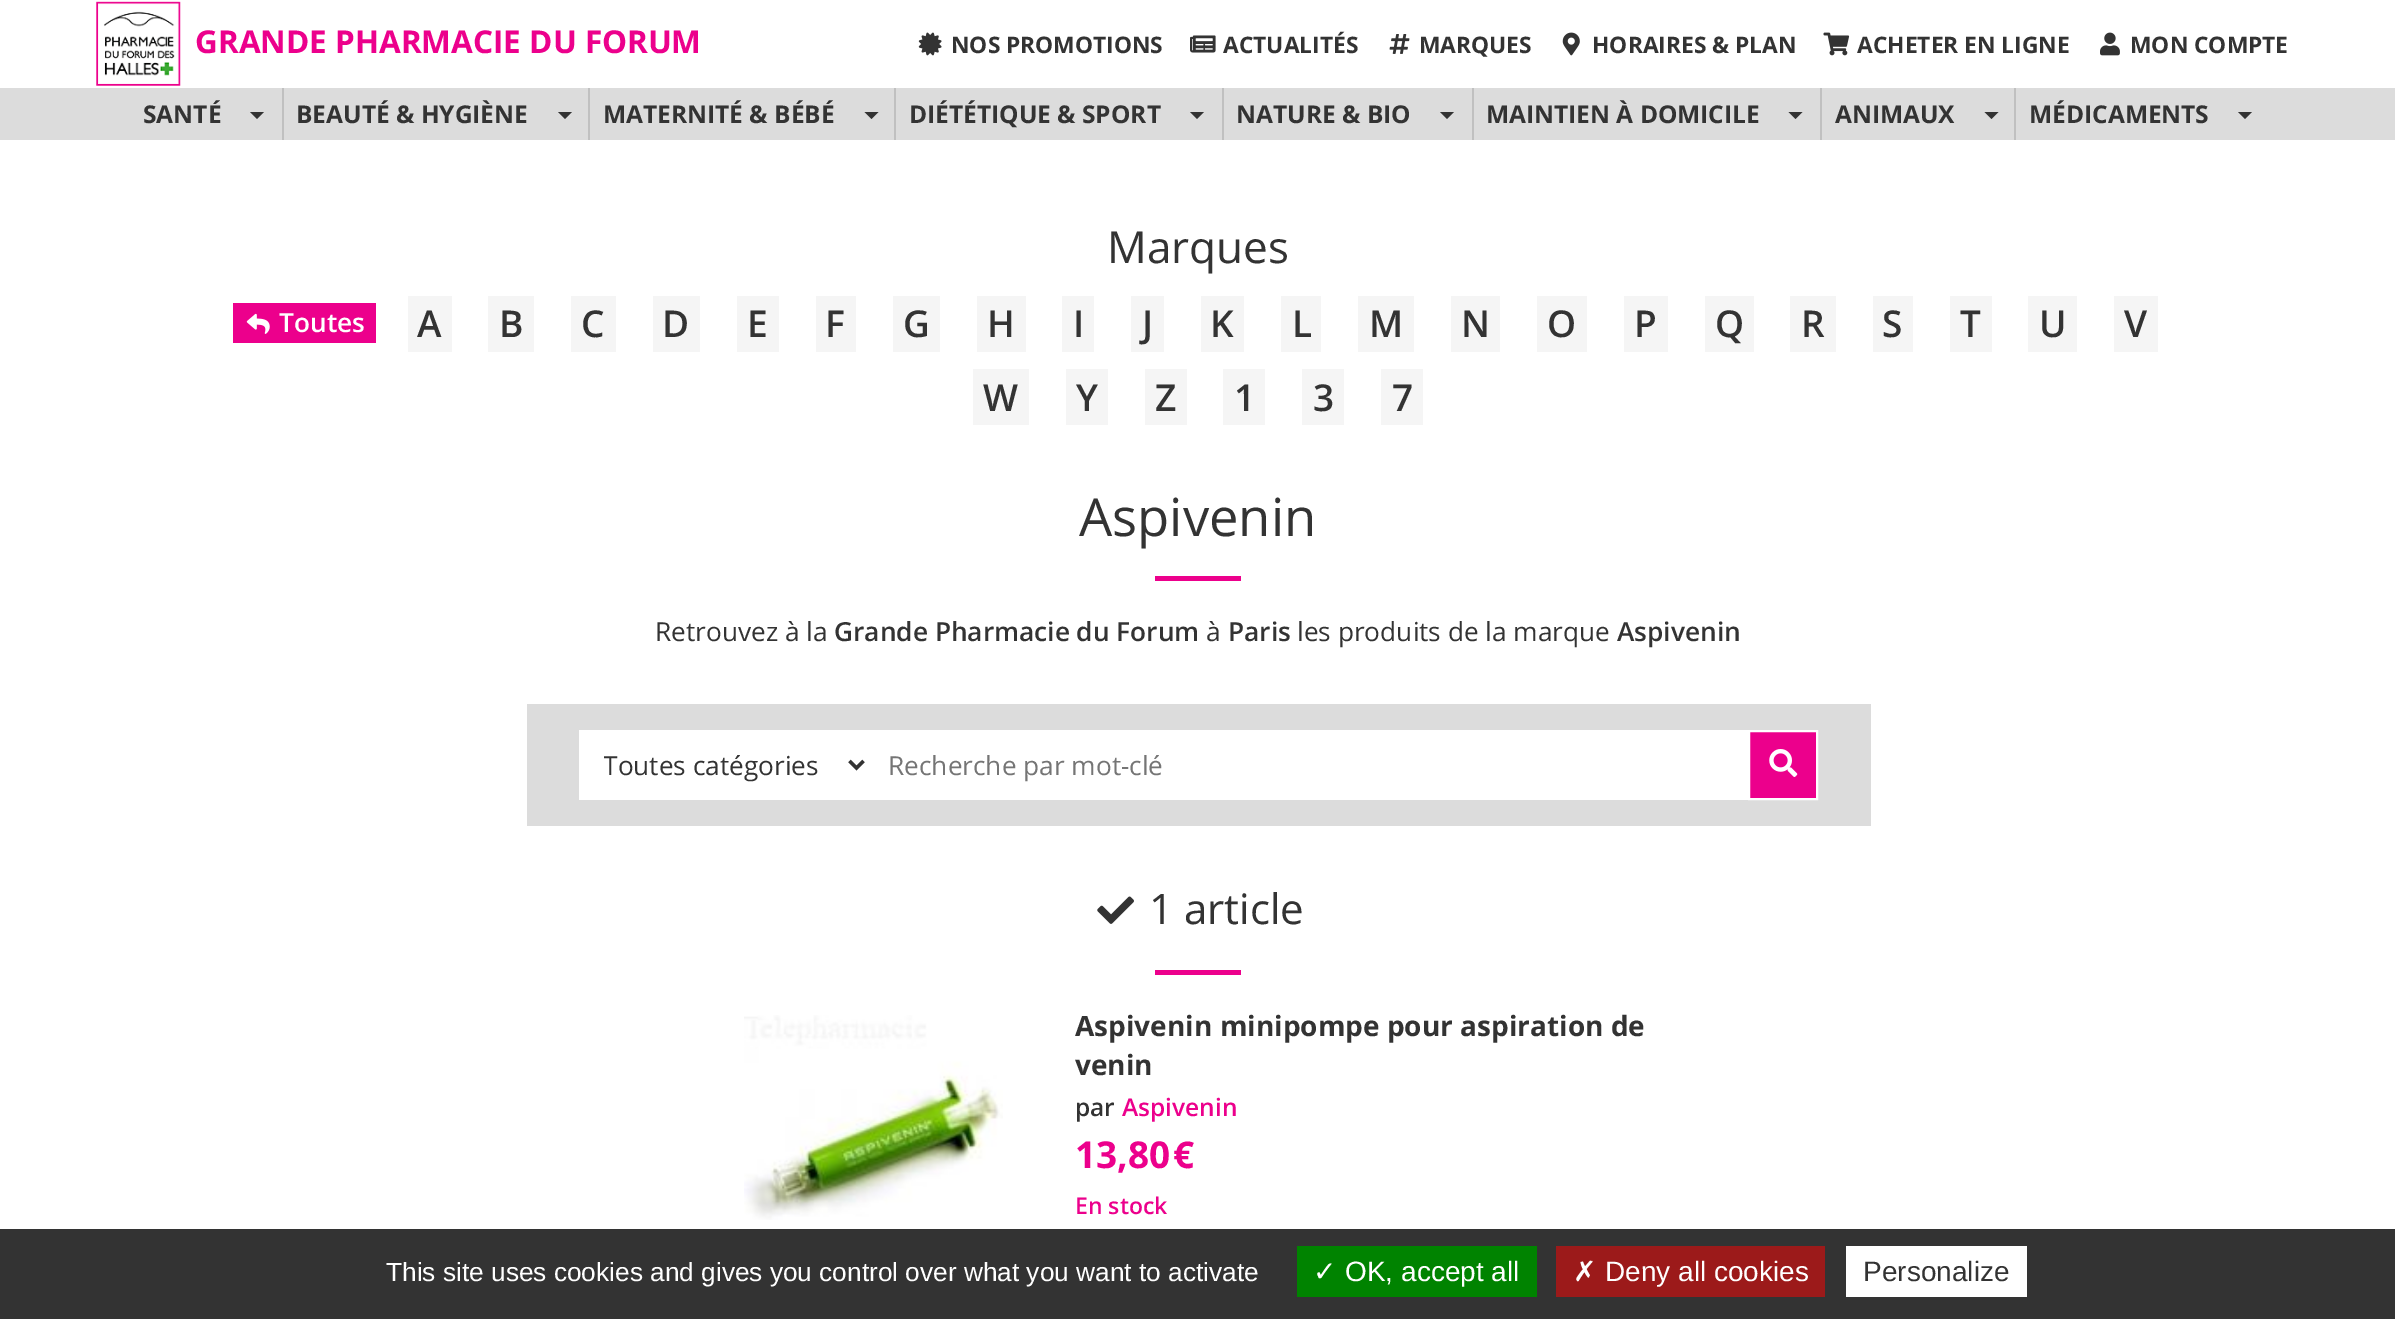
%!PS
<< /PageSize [2395 1319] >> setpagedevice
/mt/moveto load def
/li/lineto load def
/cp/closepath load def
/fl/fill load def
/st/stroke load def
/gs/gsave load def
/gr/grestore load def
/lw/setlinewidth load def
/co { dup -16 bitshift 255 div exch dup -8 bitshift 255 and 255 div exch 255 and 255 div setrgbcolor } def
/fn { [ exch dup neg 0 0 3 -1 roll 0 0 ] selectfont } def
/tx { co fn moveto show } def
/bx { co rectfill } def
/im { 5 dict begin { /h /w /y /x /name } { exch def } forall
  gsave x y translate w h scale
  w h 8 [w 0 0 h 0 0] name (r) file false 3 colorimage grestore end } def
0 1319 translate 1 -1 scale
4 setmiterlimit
0 0 2395 1319 16#FFFFFF bx
(media/1.raw) 96 1 85 85 im
(media/2.raw) 918 32 24 24 im
(media/3.raw) 1190 35 26 18 im
(media/4.raw) 1389 34 21 20 im
(media/5.raw) 1562 32 18 24 im
(media/6.raw) 1823 32 27 24 im
(media/7.raw) 2100 32 20 24 im
0 88 2395 52 16#DCDCDC bx
16#333333 co
250 112 mt 264 112 li 257 119 li cp fl
282 88 2 52 16#C0C0C0 bx
16#333333 co
558 112 mt 572 112 li 565 119 li cp fl
588 88 2 52 16#C0C0C0 bx
16#333333 co
864.5 112 mt 878.5 112 li 871.5 119 li cp fl
894 88 2 52 16#C0C0C0 bx
16#333333 co
1190 112 mt 1204 112 li 1197 119 li cp fl
1222 88 2 52 16#C0C0C0 bx
16#333333 co
1440 112 mt 1454 112 li 1447 119 li cp fl
1472 88 2 52 16#C0C0C0 bx
16#333333 co
1788.5 112 mt 1802.5 112 li 1795.5 119 li cp fl
1820 88 2 52 16#C0C0C0 bx
16#333333 co
1984.5 112 mt 1998.5 112 li 1991.5 119 li cp fl
2014 88 2 52 16#C0C0C0 bx
16#333333 co
2238 112 mt 2252 112 li 2245 119 li cp fl
233 303 143 40 16#EC008C bx
(media/8.raw) 246 313 24 21 im
408 296 44 56 16#F5F5F5 bx
488 296 46 56 16#F5F5F5 bx
571 296 45 56 16#F5F5F5 bx
653 296 47 56 16#F5F5F5 bx
737 296 42 56 16#F5F5F5 bx
816 296 40 56 16#F5F5F5 bx
893 296 47 56 16#F5F5F5 bx
977 296 49 56 16#F5F5F5 bx
1062 296 32 56 16#F5F5F5 bx
1131 296 33 56 16#F5F5F5 bx
1201 296 43 56 16#F5F5F5 bx
1281 296 40 56 16#F5F5F5 bx
1358 296 56 56 16#F5F5F5 bx
1451 296 49 56 16#F5F5F5 bx
1537 296 50 56 16#F5F5F5 bx
1624 296 44 56 16#F5F5F5 bx
1705 296 49 56 16#F5F5F5 bx
1790 296 46 56 16#F5F5F5 bx
1873 296 40 56 16#F5F5F5 bx
1950 296 42 56 16#F5F5F5 bx
2028 296 49 56 16#F5F5F5 bx
2114 296 44 56 16#F5F5F5 bx
973 369 56 56 16#F5F5F5 bx
1066 369 42 56 16#F5F5F5 bx
1145 369 42 56 16#F5F5F5 bx
1223 369 42 56 16#F5F5F5 bx
1302 369 42 56 16#F5F5F5 bx
1381 369 42 56 16#F5F5F5 bx
1155 576 86 5 16#EC008C bx
527 704 1344 122 16#DCDCDC bx
579 730 1169 70 16#FFFFFF bx
16#333333 co
3.5 lw
849.5 761 mt 856.5 768 li 863.5 761 li st
16#EC008C co
1749 731 mt 1817 731 li 1817 799 li 1749 799 li cp gs fl gr
16#FFFFFF co
2 lw
st
(media/9.raw) 1769 749 29 28 im
(media/10.raw) 1097 896 37 28 im
1155 970 86 5 16#EC008C bx
(media/11.raw) 744 1015 259 205 im
0 1229 2395 90 16#333333 bx
1297 1246 240 51 16#008300 bx
1556 1246 269 51 16#9C1A1A bx
1846 1246 181 51 16#FFFFFF bx
(GRANDE PHARMACIE DU FORUM) 195 53 /OpenSans-Bold 31.5 16#EC008C tx
(NOS PROMOTIONS) 951 53 /OpenSans-Bold 22.75 16#333333 tx
(ACTUALITÉS) 1223 53 /OpenSans-Bold 22.75 16#333333 tx
(MARQUES) 1419 53 /OpenSans-Bold 22.75 16#333333 tx
(HORAIRES & PLAN) 1592 53 /OpenSans-Bold 22.75 16#333333 tx
(ACHETER EN LIGNE) 1857 53 /OpenSans-Bold 22.75 16#333333 tx
(MON COMPTE) 2130 53 /OpenSans-Bold 22.75 16#333333 tx
(SANTÉ) 143 123 /OpenSans-Bold 24.5 16#333333 tx
(BEAUTÉ & HYGIÈNE) 296 123 /OpenSans-Bold 24.5 16#333333 tx
(MATERNITÉ & BÉBÉ) 603 123 /OpenSans-Bold 24.5 16#333333 tx
(DIÉTÉTIQUE & SPORT) 909 123 /OpenSans-Bold 24.5 16#333333 tx
(NATURE & BIO) 1236 123 /OpenSans-Bold 24.5 16#333333 tx
(MAINTIEN À DOMICILE) 1486 123 /OpenSans-Bold 24.5 16#333333 tx
(ANIMAUX) 1835 123 /OpenSans-Bold 24.5 16#333333 tx
(MÉDICAMENTS) 2029 123 /OpenSans-Bold 24.5 16#333333 tx
(Marques) 1107 263 /OpenSans-Regular 44 16#333333 tx
(Toutes) 279 332 /OpenSans-SemiBold 26.25 16#FFFFFF tx
(A) 417 337 /OpenSans-SemiBold 37 16#333333 tx
(B) 499 337 /OpenSans-SemiBold 37 16#333333 tx
(C) 581 337 /OpenSans-SemiBold 37 16#333333 tx
(D) 662 337 /OpenSans-SemiBold 37 16#333333 tx
(E) 747 337 /OpenSans-SemiBold 37 16#333333 tx
(F) 825 337 /OpenSans-SemiBold 37 16#333333 tx
(G) 903 337 /OpenSans-SemiBold 37 16#333333 tx
(H) 987 337 /OpenSans-SemiBold 37 16#333333 tx
(I) 1073 337 /OpenSans-SemiBold 37 16#333333 tx
(J) 1142 337 /OpenSans-SemiBold 37 16#333333 tx
(K) 1210 337 /OpenSans-SemiBold 37 16#333333 tx
(L) 1292 337 /OpenSans-SemiBold 37 16#333333 tx
(M) 1369 337 /OpenSans-SemiBold 37 16#333333 tx
(N) 1461 337 /OpenSans-SemiBold 37 16#333333 tx
(O) 1547 337 /OpenSans-SemiBold 37 16#333333 tx
(P) 1634 337 /OpenSans-SemiBold 37 16#333333 tx
(Q) 1715 337 /OpenSans-SemiBold 37 16#333333 tx
(R) 1801 337 /OpenSans-SemiBold 37 16#333333 tx
(S) 1882 337 /OpenSans-SemiBold 37 16#333333 tx
(T) 1960 337 /OpenSans-SemiBold 37 16#333333 tx
(U) 2039 337 /OpenSans-SemiBold 37 16#333333 tx
(V) 2124 337 /OpenSans-SemiBold 37 16#333333 tx
(W) 983 411 /OpenSans-SemiBold 37 16#333333 tx
(Y) 1076 411 /OpenSans-SemiBold 37 16#333333 tx
(Z) 1155 411 /OpenSans-SemiBold 37 16#333333 tx
(1) 1234 411 /OpenSans-SemiBold 37 16#333333 tx
(3) 1313 411 /OpenSans-SemiBold 37 16#333333 tx
(7) 1392 411 /OpenSans-SemiBold 37 16#333333 tx
(Aspivenin) 1079 536 /OpenSans-Regular 52.5 16#333333 tx
(Retrouvez à la) 655 641 /OpenSans-Regular 26.25 16#333333 tx
(Grande Pharmacie du Forum) 834 641 /OpenSans-SemiBold 26.25 16#333333 tx
(à) 1206 641 /OpenSans-Regular 26.25 16#333333 tx
(Paris) 1228 641 /OpenSans-SemiBold 26.25 16#333333 tx
(les produits de la marque) 1297 641 /OpenSans-Regular 26.25 16#333333 tx
(Aspivenin) 1617 641 /OpenSans-SemiBold 26.25 16#333333 tx
gs
604 746 240 38 rectclip
(Toutes catégories) 603 775 /OpenSans-Regular 26.25 16#333333 tx
gr
(Recherche par mot-clé) 888 775 /OpenSans-Regular 26.25 16#757575 tx
(1 article) 1149 924 /OpenSans-Regular 42 16#333333 tx
(Aspivenin minipompe pour aspiration de) 1075 1036 /OpenSans-Bold 28 16#333333 tx
(venin) 1075 1075 /OpenSans-Bold 28 16#333333 tx
(par) 1075 1116 /OpenSans-SemiBold 24.5 16#333333 tx
(Aspivenin) 1122 1116 /OpenSans-SemiBold 24.5 16#EC008C tx
(13,80) 1075 1168 /OpenSans-Bold 37 16#EC008C tx
(€) 1173 1168 /OpenSans-Bold 37 16#EC008C tx
(En stock) 1075 1214 /OpenSans-SemiBold 23 16#EC008C tx
(This site uses cookies and gives you control over what you want to activate) 386 1281 /LiberationSans-Regular 26.25 16#FFFFFF tx
(✓) 1313 1281 /DejaVuSans-Regular 28 16#FFFFFF tx
(OK, accept all) 1345 1281 /LiberationSans-Regular 28 16#FFFFFF tx
(✗) 1573 1281 /DejaVuSans-Regular 28 16#FFFFFF tx
(Deny all cookies) 1605 1281 /LiberationSans-Regular 28 16#FFFFFF tx
(Personalize) 1863 1281 /LiberationSans-Regular 28 16#333333 tx
showpage
